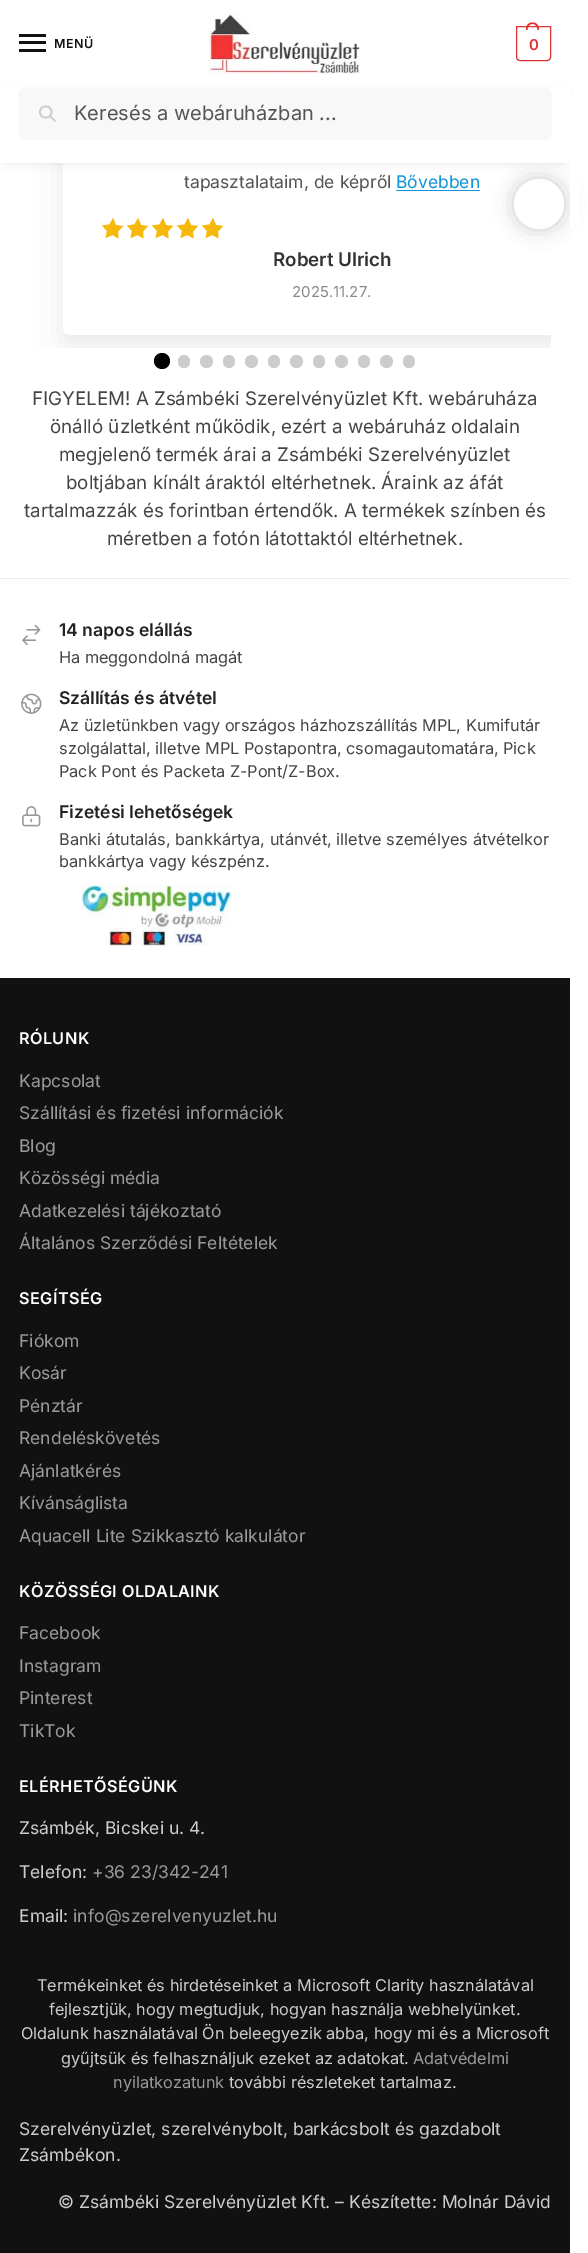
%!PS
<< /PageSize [588 2253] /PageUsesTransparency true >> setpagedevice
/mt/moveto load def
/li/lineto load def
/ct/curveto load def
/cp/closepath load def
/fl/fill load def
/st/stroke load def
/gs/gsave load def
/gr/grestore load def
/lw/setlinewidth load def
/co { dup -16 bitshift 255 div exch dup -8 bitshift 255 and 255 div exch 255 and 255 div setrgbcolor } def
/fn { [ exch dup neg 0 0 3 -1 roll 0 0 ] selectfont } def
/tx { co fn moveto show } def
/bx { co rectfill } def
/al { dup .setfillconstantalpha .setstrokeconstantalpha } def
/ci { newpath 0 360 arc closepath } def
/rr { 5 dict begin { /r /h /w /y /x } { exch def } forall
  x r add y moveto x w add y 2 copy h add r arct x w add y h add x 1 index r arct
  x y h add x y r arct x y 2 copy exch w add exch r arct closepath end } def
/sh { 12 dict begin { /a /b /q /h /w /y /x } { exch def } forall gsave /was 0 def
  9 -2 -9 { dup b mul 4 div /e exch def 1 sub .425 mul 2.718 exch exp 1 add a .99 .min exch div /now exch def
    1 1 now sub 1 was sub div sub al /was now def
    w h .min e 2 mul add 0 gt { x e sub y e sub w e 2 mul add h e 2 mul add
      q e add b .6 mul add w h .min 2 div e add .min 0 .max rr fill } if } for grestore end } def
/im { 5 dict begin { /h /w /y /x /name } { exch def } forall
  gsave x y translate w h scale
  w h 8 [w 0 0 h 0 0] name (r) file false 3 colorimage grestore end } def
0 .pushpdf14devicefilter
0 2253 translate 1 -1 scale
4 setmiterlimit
0 0 588 2253 16#FFFFFF bx
19 34 27 3 16#111111 bx
19 41 27 3 16#111111 bx
19 49 27 3 16#111111 bx
(media/1.raw) 208 13 152 62 im
16#DD3333 co
516.5 26.5 mt 550.5 26.5 li 550.5 57 li 550.5 59 549 60.5 547 60.5 ct 520 60.5 li 518 60.5 516.5 59 516.5 57 ct cp st
532.5 22.5 mt 537 22.5 539 26 539 30 ct 526 30 li 526 26 528 22.5 532.5 22.5 ct cp 532.5 24 mt 536 24 537.5 27 537.5 30 ct 527.5 30 li 527.5 27 529 24 532.5 24 ct cp eofill
16#000000 co
6 98 558 62 0 6 .18 sh
514 179 50 50 25 10 .2 sh
gs
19 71 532 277 rectclip
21 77 mt 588 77 li 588 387 li 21 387 li cp 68 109 mt 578 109 li 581 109 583 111 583 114 ct 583 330 li 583 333 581 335 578 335 ct 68 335 li 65 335 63 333 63 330 ct 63 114 li 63 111 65 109 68 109 ct cp eoclip newpath
60 116 525 232 8 12.5 .07 sh
gr
0 88 570 75 16#FFFFFF bx
16#000000 co
19 89 532 50 6 1 .05 sh
16#F8F8F8 co
19 88 532 50 6 rr fl
16#CCCCCC co
1.7 lw
1 setlinecap
1 setlinejoin
55 121 mt 50 116 li 51.5 112 mt 51.5 119.5 40 119.5 40 112 ct 40 104.5 51.5 104.5 51.5 112 ct cp st
16#FFFFFF co
539 204 25 ci fl
16#000000 co
162 361 8 ci fl
16#CCCCCC co
178 355 12 13 6 rr fl
206.5 361.5 6.5 ci fl
223 355 12 13 6 rr fl
251.5 361.5 6.5 ci fl
268 355 12 13 6 rr fl
296.5 361.5 6.5 ci fl
313 355 12 13 6 rr fl
341.5 361.5 6.5 ci fl
358 355 12 13 6 rr fl
386.5 361.5 6.5 ci fl
403 355 12 13 6 rr fl
396 190 84 1 16#1194DC bx
16#F7B80C co
112.5 235 mt 105.5 238 li 107 231 li 102 225.5 li 109.5 224.5 li 113 218 li 116 225 li 123 226 li 118 231.5 li 118.5 238.5 li cp 137.5 235 mt 130.5 238 li 132 231 li 127 225.5 li 134.5 224.5 li 138 218 li 141 225 li 148 226 li 143 231.5 li 143.5 238.5 li cp fl
162.5 235 mt 155.5 238 li 157 231 li 152 225.5 li 159.5 224.5 li 163 218 li 166 225 li 173 226 li 168 231.5 li 168.5 238.5 li cp 187.5 235 mt 180.5 238 li 182 231 li 177 225.5 li 184.5 224.5 li 188 218 li 191 225 li 198 226 li 193 231.5 li 193.5 238.5 li cp fl
212.5 235 mt 205.5 238 li 207 231 li 202 225.5 li 209.5 224.5 li 213 218 li 216 225 li 223 226 li 218 231.5 li 218.5 238.5 li cp fl
570 96 9 132 16#FFFFFF bx
0 578 570 1 16#EEEEEE bx
(media/2.raw) 22 624 19 22 im
(media/3.raw) 21 693 21 21 im
(media/4.raw) 22 806 19 21 im
(media/5.raw) 81 885 151 61 im
0 978 570 1275 16#111111 bx
/Inter-SemiBold 12.5 fn
54 48 mt .4 0 (MENÜ) ashow
/Inter-SemiBold 15 fn
16#DD3333 co
529 50 mt -1 0 (0) ashow
(Keresés a webáruházban ...) 74 120 /Inter-Regular 20 16#555555 tx
(tapasztalataim, de képről) 184 188 /Inter-Regular 17.5 16#555555 tx
(Bővebben) 396 188 /Inter-Regular 17.5 16#1194DC tx
(Robert Ulrich) 273 266 /Inter-SemiBold 18.75 16#333333 tx
(2025.11.27.) 292 297 /Inter-Regular 15 16#888888 tx
(FIGYELEM! A Zsámbéki Szerelvényüzlet Kft. webáruháza) 32 405 /Inter-Regular 18.75 16#444444 tx
(önálló üzletként működik, ezért a webáruház oldalain) 50 433 /Inter-Regular 18.75 16#444444 tx
(megjelenő termék árai a Zsámbéki Szerelvényüzlet) 59 461 /Inter-Regular 18.75 16#444444 tx
(boltjában kínált áraktól eltérhetnek. Áraink az áfát) 66 489 /Inter-Regular 18.75 16#444444 tx
(tartalmazzák és forintban értendők. A termékek színben és) 24 517 /Inter-Regular 18.75 16#444444 tx
(méretben a fotón látottaktól eltérhetnek.) 107 545 /Inter-Regular 18.75 16#444444 tx
(14 napos elállás) 59 636 /Inter-SemiBold 17.5 16#222222 tx
(Ha meggondolná magát) 59 663 /Inter-Regular 16.25 16#444444 tx
(Szállítás és átvétel) 59 704 /Inter-SemiBold 17.5 16#222222 tx
(Az üzletünkben vagy országos házhozszállítás MPL, Kumifutár) 59 731 /Inter-Regular 16.25 16#444444 tx
(szolgálattal, illetve MPL Postapontra, csomagautomatára, Pick) 59 754 /Inter-Regular 16.25 16#444444 tx
(Pack Pont és Packeta Z-Pont/Z-Box.) 59 777 /Inter-Regular 16.25 16#444444 tx
(Fizetési lehetőségek) 59 818 /Inter-SemiBold 17.5 16#222222 tx
(Banki átutalás, bankkártya, utánvét, illetve személyes átvételkor) 59 845 /Inter-Regular 16.25 16#444444 tx
(bankkártya vagy készpénz.) 59 867 /Inter-Regular 16.25 16#444444 tx
/Inter-SemiBold 16.25 fn
16#FFFFFF co
19 1044 mt .4 0 (RÓLUNK) ashow
(Kapcsolat) 19 1087 /Inter-Regular 17.5 16#999999 tx
(Szállítási és fizetési információk) 19 1119 /Inter-Regular 17.5 16#999999 tx
(Blog) 19 1152 /Inter-Regular 17.5 16#999999 tx
(Közösségi média) 19 1184 /Inter-Regular 17.5 16#999999 tx
(Adatkezelési tájékoztató) 19 1217 /Inter-Regular 17.5 16#999999 tx
(Általános Szerződési Feltételek) 19 1249 /Inter-Regular 17.5 16#999999 tx
/Inter-SemiBold 16.25 fn
16#FFFFFF co
19 1304 mt .4 0 (SEGÍTSÉG) ashow
(Fiókom) 19 1347 /Inter-Regular 17.5 16#999999 tx
(Kosár) 19 1379 /Inter-Regular 17.5 16#999999 tx
(Pénztár) 19 1412 /Inter-Regular 17.5 16#999999 tx
(Rendeléskövetés) 19 1444 /Inter-Regular 17.5 16#999999 tx
(Ajánlatkérés) 19 1477 /Inter-Regular 17.5 16#999999 tx
(Kívánságlista) 19 1509 /Inter-Regular 17.5 16#999999 tx
(Aquacell Lite Szikkasztó kalkulátor) 19 1542 /Inter-Regular 17.5 16#999999 tx
/Inter-SemiBold 16.25 fn
16#FFFFFF co
19 1597 mt .4 0 (KÖZÖSSÉGI OLDALAINK) ashow
(Facebook) 19 1639 /Inter-Regular 17.5 16#999999 tx
(Instagram) 19 1672 /Inter-Regular 17.5 16#999999 tx
(Pinterest) 19 1704 /Inter-Regular 17.5 16#999999 tx
(TikTok) 19 1737 /Inter-Regular 17.5 16#999999 tx
/Inter-SemiBold 16.25 fn
16#FFFFFF co
19 1792 mt .4 0 (ELÉRHETŐSÉGÜNK) ashow
(Zsámbék, Bicskei u. 4.) 19 1834 /Inter-Regular 17.5 16#CCCCCC tx
(Telefon:) 19 1878 /Inter-Regular 17.5 16#CCCCCC tx
(+36 23/342-241) 92 1878 /Inter-Regular 17.5 16#999999 tx
(Email:) 19 1922 /Inter-Regular 17.5 16#CCCCCC tx
(info@szerelvenyuzlet.hu) 73 1922 /Inter-Regular 17.5 16#999999 tx
(Termékeinket és hirdetéseinket a Microsoft Clarity használatával) 37 1991 /Inter-Regular 16.25 16#CCCCCC tx
(fejlesztjük, hogy megtudjuk, hogyan használja webhelyünket.) 49 2015 /Inter-Regular 16.25 16#CCCCCC tx
(Oldalunk használatával Ön beleegyezik abba, hogy mi és a Microsoft) 21 2039 /Inter-Regular 16.25 16#CCCCCC tx
(gyűjtsük és felhasználjuk ezeket az adatokat.) 61 2064 /Inter-Regular 16.25 16#CCCCCC tx
(Adatvédelmi) 413 2064 /Inter-Regular 16.25 16#999999 tx
(nyilatkozatunk) 113 2088 /Inter-Regular 16.25 16#999999 tx
(további részleteket tartalmaz.) 229 2088 /Inter-Regular 16.25 16#CCCCCC tx
(Szerelvényüzlet, szerelvénybolt, barkácsbolt és gazdabolt) 19 2135 /Inter-Regular 17.5 16#CCCCCC tx
(Zsámbékon.) 19 2161 /Inter-Regular 17.5 16#CCCCCC tx
(© Zsámbéki Szerelvényüzlet Kft. – Készítette: Molnár Dávid) 58 2208 /Inter-Regular 17.5 16#CCCCCC tx
.poppdf14devicefilter showpage
